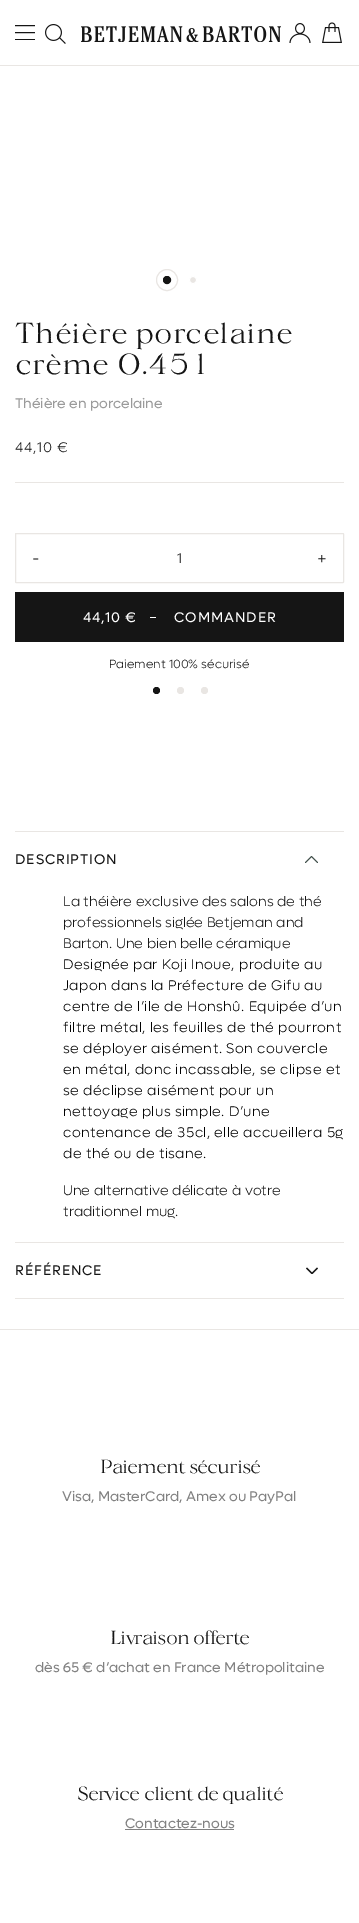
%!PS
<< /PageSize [359 1923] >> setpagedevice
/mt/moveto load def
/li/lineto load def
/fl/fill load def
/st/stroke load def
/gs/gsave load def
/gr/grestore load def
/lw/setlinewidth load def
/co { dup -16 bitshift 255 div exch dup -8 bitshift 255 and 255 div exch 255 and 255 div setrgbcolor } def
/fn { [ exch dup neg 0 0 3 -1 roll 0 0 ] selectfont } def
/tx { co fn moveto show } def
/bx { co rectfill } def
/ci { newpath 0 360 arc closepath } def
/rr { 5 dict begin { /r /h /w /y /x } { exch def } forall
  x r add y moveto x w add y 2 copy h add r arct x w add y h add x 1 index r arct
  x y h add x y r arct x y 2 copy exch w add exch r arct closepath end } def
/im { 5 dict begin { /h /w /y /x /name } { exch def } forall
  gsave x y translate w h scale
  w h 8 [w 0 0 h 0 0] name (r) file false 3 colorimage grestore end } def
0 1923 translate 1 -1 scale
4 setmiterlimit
0 0 359 1923 16#FFFFFF bx
0 65 359 1 16#E9E6E3 bx
(media/1.raw) 15 25 20 15 im
(media/2.raw) 45 24 21 20 im
(media/3.raw) 81 26 200 16 im
(media/4.raw) 289 23 22 20 im
(media/5.raw) 322 22 20 21 im
16#151515 co
167 280 3.5 ci gs fl gr
st
16#E9E6E3 co
167 280 10.5 ci st
193 280 3.5 ci gs fl gr
16#FFFFFF co
st
15 482 329 1 16#E9E6E3 bx
15.5 533.5 328 49 .5 rr st
15 592 329 50 16#151515 bx
150 617 6 1 16#FFFFFF bx
16#151515 co
156.5 690.5 3.5 ci fl
16#E9E6E3 co
180.5 690.5 3.5 ci fl
204.5 690.5 3.5 ci fl
15 831 329 1 16#E9E6E3 bx
15 1242 329 1 16#E9E6E3 bx
16#42504C co
1 setlinecap
1 setlinejoin
317.5 862.5 mt 311.5 856.5 li 305.5 862.5 li st
15 1298 329 1 16#E9E6E3 bx
16#151515 co
1.2 lw
2 setlinecap
307 1268.5 mt 312 1273.5 li 317 1268.5 li st
0 1329 359 1 16#E9E6E3 bx
125 1829 109 1 16#818181 bx
(Théière porcelaine) 15 343 /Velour-Regular 30.6 16#151515 tx
(crème 0.45 l) 15 374 /Velour-Regular 30.6 16#151515 tx
(Théière en porcelaine) 15 408 /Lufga-Regular 14 16#9A9A9A tx
/Lufga-Light 14 fn
16#151515 co
15 452 mt .75 0 (44,10 €) ashow
(-) 32 564 /Lufga-Light 18 16#151515 tx
(1) 177 563 /Lufga-Light 14 16#151515 tx
(+) 317 564 /Lufga-Light 18 16#151515 tx
/Lufga-Regular 14 fn
16#FFFFFF co
83 622 mt .75 0 (44,10 €) ashow
174 622 mt 1 0 (COMMANDER) ashow
(Paiement 100% sécurisé) 109 668 /Lufga-Light 12 16#151515 tx
/Lufga-Regular 14 fn
15 864 mt 1 0 (DESCRIPTION) ashow
(La théière exclusive des salons de thé) 63 906 /Lufga-Light 14 16#151515 tx
(professionnels siglée Betjeman and) 63 927 /Lufga-Light 14 16#151515 tx
(Barton. Une bien belle céramique) 63 948 /Lufga-Light 14 16#151515 tx
16#000000 co
63 969 mt .4 0 (Designée par Koji Inoue, produite au) ashow
63 990 mt .4 0 (Japon dans la Préfecture de Gifu au) ashow
63 1011 mt .4 0 (centre de l’ile de Honshû. Equipée d’un) ashow
63 1032 mt .4 0 (filtre métal, les feuilles de thé pourront) ashow
63 1053 mt .4 0 (se déployer aisément. Son couvercle) ashow
63 1074 mt .4 0 (en métal, donc incassable, se clipse et) ashow
63 1095 mt .4 0 (se déclipse aisément pour un) ashow
63 1116 mt .4 0 (nettoyage plus simple. D’une) ashow
63 1137 mt .4 0 (contenance de 35cl, elle accueillera 5g) ashow
63 1158 mt .4 0 (de thé ou de tisane.) ashow
(Une alternative délicate à votre) 63 1195 /Lufga-Light 14 16#151515 tx
(traditionnel mug.) 63 1216 /Lufga-Light 14 16#151515 tx
/Lufga-Regular 14 fn
15 1275 mt 1 0 (RÉFÉRENCE) ashow
/Velour-Regular 20 fn
100 1473 mt -1 0 (Paiement sécurisé) ashow
(Visa, MasterCard, Amex ou PayPal) 62 1501 /Lufga-Regular 14 16#818181 tx
/Velour-Regular 20 fn
16#151515 co
110 1644 mt -1 0 (Livraison offerte) ashow
(dès 65 € d’achat en France Métropolitaine) 35 1672 /Lufga-Regular 14 16#818181 tx
/Velour-Regular 20 fn
16#151515 co
77 1800 mt -1 0 (Service client de qualité) ashow
(Contactez-nous) 125 1828 /Lufga-Regular 14 16#818181 tx
showpage
